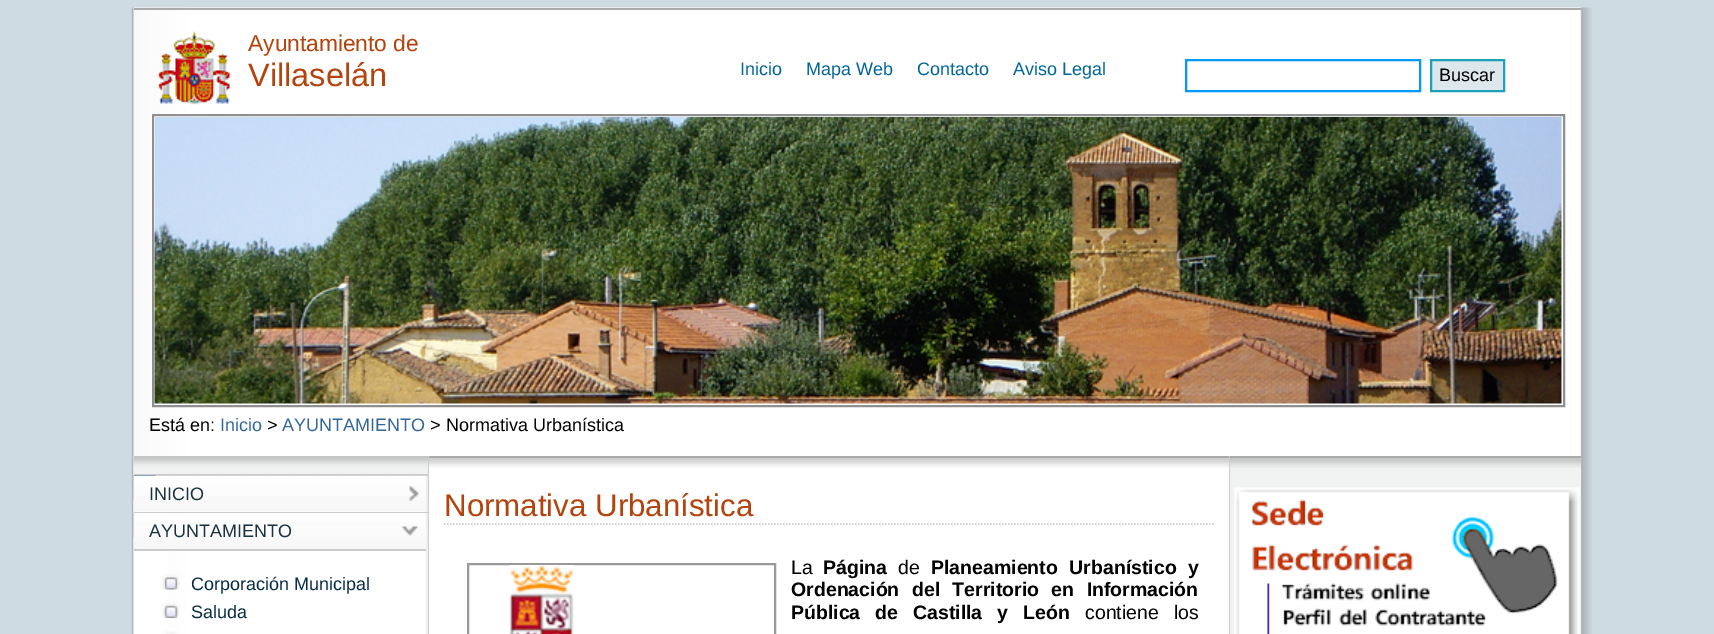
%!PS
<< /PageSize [1714 634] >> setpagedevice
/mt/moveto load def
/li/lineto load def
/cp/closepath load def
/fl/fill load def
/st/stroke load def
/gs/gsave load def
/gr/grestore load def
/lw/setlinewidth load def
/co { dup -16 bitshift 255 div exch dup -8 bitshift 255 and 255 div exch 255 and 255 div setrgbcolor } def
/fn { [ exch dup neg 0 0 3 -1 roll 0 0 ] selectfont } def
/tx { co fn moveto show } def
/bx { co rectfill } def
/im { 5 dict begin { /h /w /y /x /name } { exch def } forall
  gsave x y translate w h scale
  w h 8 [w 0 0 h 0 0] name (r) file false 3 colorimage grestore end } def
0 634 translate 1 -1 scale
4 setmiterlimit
0 0 1714 634 16#CEDBE3 bx
(media/1.raw) 131 7 1461 627 im
134 8 1447 2 16#AAAAAA bx
(media/2.raw) 158 31 73 74 im
16#0099FF co
2 lw
1186 60 234 31 rectstroke
16#DDE7EC co
1431 60 mt 1504 60 li 1504 91 li 1431 91 li cp gs fl gr
16#1DA1BC co
st
16#8F8F8F co
153 115 1411 291 rectstroke
(media/3.raw) 154 117 1408 287 im
(media/4.raw) 133 456 1 178 im
134 469 294 5 16#F1F2F2 bx
(media/5.raw) 133 456 295 13 im
428 456 1 178 16#CCCCCC bx
134 474 294 2 16#CCCCCC bx
(media/6.raw) 133 475 295 25 im
134 512 294 1 16#CCCCCC bx
134 476 292 36 16#FFFFFF bx
(media/7.raw) 133 477 293 35 im
426 476 2 36 16#EEEEEE bx
(media/8.raw) 409 486 10 15 im
(media/9.raw) 133 513 1 24 im
134 513 34 2 16#FFFFFF bx
(media/10.raw) 133 514 293 35 im
426 513 2 36 16#EEEEEE bx
(media/11.raw) 402 526 17 10 im
134 551 34 83 16#FFFFFF bx
134 549 294 2 16#CCCCCC bx
426 549 2 85 16#EEEEEE bx
(media/12.raw) 162 573 18 17 im
(media/13.raw) 162 602 18 16 im
(media/14.raw) 162 630 18 4 im
(media/15.raw) 429 458 800 10 im
429 456 1152 2 16#AAAAAA bx
1229 456 1 178 16#CCCCCC bx
1.5 lw
[1.5 1.5] 0 setdash
444 524 mt 1213.5 524 li st
16#999999 co
2 lw
[] 0 setdash
468 564 307 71 rectstroke
(media/16.raw) 509 565 65 69 im
1230 468 350 166 16#F1F2F2 bx
(media/17.raw) 1230 458 351 10 im
(media/18.raw) 1234 487 346 147 im
(Ayuntamiento de) 248 51 /LiberationSans-Regular 22.75 16#B4430D tx
(Villaselán) 248 86 /LiberationSans-Regular 32.5 16#B4430D tx
(Inicio) 740 75 /LiberationSans-Regular 18 16#006699 tx
(Mapa Web) 806 75 /LiberationSans-Regular 18 16#006699 tx
(Contacto) 917 75 /LiberationSans-Regular 18 16#006699 tx
(Aviso Legal) 1013 75 /LiberationSans-Regular 18 16#006699 tx
(Buscar) 1439 81 /LiberationSans-Regular 18 16#000000 tx
(Está en:) 149 431 /LiberationSans-Regular 18 16#000000 tx
(Inicio) 220 431 /LiberationSans-Regular 18 16#336699 tx
(>) 267 431 /LiberationSans-Regular 18 16#000000 tx
(AYUNTAMIENTO) 282 431 /LiberationSans-Regular 18 16#336699 tx
(> Normativa Urbanística) 430 431 /LiberationSans-Regular 18 16#000000 tx
(INICIO) 149 500 /LiberationSans-Regular 18 16#1A3240 tx
(AYUNTAMIENTO) 149 537 /LiberationSans-Regular 18 16#1A3240 tx
(Corporación Municipal) 191 590 /LiberationSans-Regular 18 16#062D43 tx
(Saluda) 191 618 /LiberationSans-Regular 18 16#062D43 tx
(Normativa Urbanística) 444 516 /LiberationSans-Regular 31.25 16#B4430D tx
(La) 791 574 /LiberationSans-Regular 19.5 16#000000 tx
(Página) 823 574 /LiberationSans-Bold 19.5 16#000000 tx
(de) 898 574 /LiberationSans-Regular 19.5 16#000000 tx
/LiberationSans-Bold 19.5 fn
931 574 mt 6 0 32 (Planeamiento Urbanístico y) widthshow
791 596 mt 7 0 32 (Ordenación del Territorio en Información) widthshow
791 619 mt 9.5 0 32 (Pública de Castilla y León) widthshow
/LiberationSans-Regular 19.5 fn
1085 619 mt 9.5 0 32 (contiene los) widthshow
showpage
